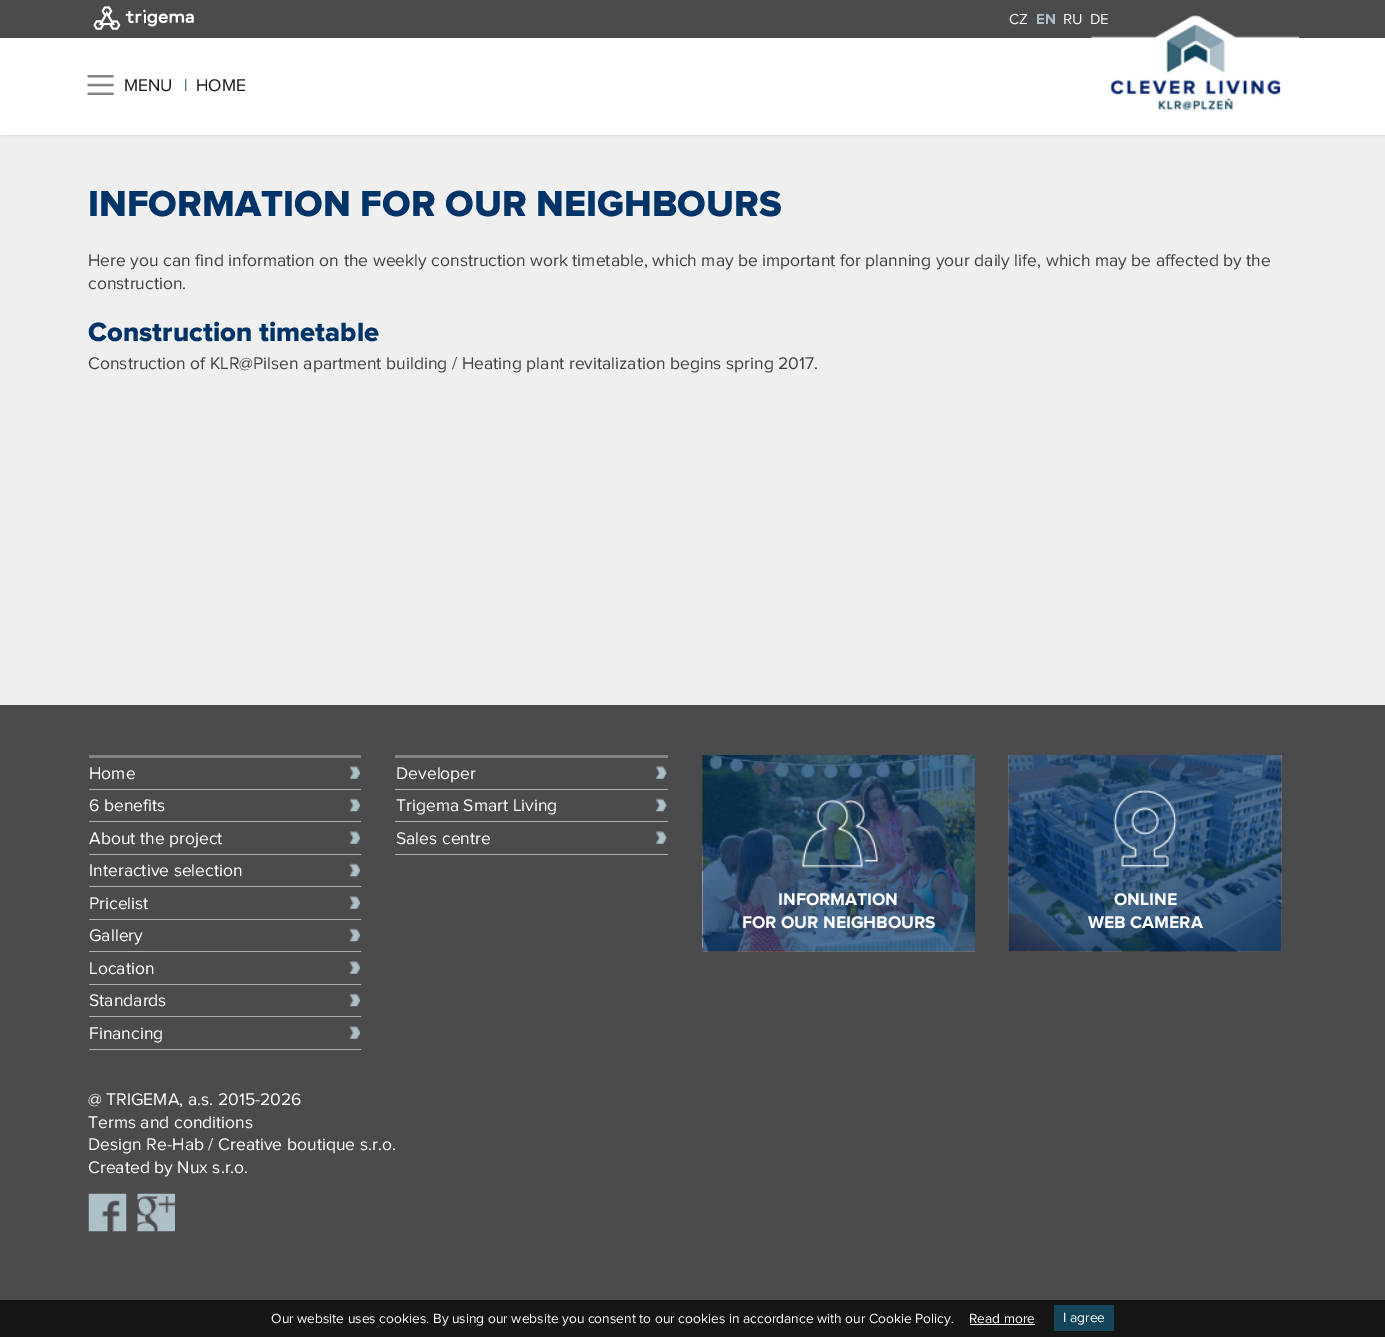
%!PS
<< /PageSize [1385 1337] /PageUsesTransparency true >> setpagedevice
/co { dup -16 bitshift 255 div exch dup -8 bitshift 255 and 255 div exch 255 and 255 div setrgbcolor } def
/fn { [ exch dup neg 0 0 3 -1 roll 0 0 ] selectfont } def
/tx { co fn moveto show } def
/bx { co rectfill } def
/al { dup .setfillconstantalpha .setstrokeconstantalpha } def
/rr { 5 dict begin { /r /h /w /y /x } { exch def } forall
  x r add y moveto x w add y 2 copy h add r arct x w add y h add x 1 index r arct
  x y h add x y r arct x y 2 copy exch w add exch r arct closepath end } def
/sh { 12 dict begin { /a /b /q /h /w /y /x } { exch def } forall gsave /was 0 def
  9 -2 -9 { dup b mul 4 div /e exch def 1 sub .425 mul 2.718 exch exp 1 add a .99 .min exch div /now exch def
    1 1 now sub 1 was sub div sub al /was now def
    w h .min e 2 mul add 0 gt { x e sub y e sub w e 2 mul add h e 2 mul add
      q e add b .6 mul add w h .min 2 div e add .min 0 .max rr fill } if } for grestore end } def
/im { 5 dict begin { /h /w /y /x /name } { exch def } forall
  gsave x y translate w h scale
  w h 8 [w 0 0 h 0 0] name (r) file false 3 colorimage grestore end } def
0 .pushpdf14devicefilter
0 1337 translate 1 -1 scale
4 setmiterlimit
0 0 1385 1337 16#F0EFEF bx
16#DEDEDE co
1 39 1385 97 0 .5 1 sh
0 0 1385 38 16#4B4A4D bx
(media/1.raw) 93 6 101 24 im
0 38 1385 97 16#FFFFFF bx
(media/2.raw) 1091 15 208 96 im
(media/3.raw) 87 75 27 20 im
0 705 1385 595 16#4B4A4D bx
89 755 272 3 16#838385 bx
(media/4.raw) 350 766 10 13 im
89 789 272 1 16#B1B0B2 bx
(media/5.raw) 350 798 10 14 im
89 821 272 1 16#B1B0B2 bx
(media/4.raw) 350 831 10 13 im
89 854 272 1 16#B1B0B2 bx
(media/5.raw) 350 863 10 14 im
89 886 272 1 16#B1B0B2 bx
(media/4.raw) 350 896 10 13 im
89 919 272 1 16#B1B0B2 bx
(media/5.raw) 350 928 10 14 im
89 951 272 1 16#B1B0B2 bx
(media/4.raw) 350 961 10 13 im
89 984 272 1 16#B1B0B2 bx
(media/5.raw) 350 993 10 14 im
89 1016 272 1 16#B1B0B2 bx
(media/4.raw) 350 1026 10 13 im
89 1049 272 1 16#B1B0B2 bx
395 755 273 3 16#838385 bx
(media/6.raw) 656 766 11 13 im
395 789 273 1 16#B1B0B2 bx
(media/7.raw) 656 798 11 14 im
395 821 273 1 16#B1B0B2 bx
(media/6.raw) 656 831 11 13 im
395 854 273 1 16#B1B0B2 bx
(media/8.raw) 702 755 273 197 im
(media/9.raw) 801 799 77 69 im
(media/10.raw) 1008 755 274 197 im
(media/11.raw) 1113 790 64 78 im
(media/12.raw) 88 1193 39 39 im
(media/13.raw) 137 1193 38 39 im
0 1300 1385 37 16#171617 bx
970 1324 65 1 16#FFFFFF bx
1054 1305 60 26 16#13465B bx
(CZ) 1009 24 /ProximaNova-Regular 15 16#FFFFFF tx
(EN) 1036 24 /ProximaNova-Bold 15 16#ADBFC7 tx
(RU) 1063 24 /ProximaNova-Regular 15 16#FFFFFF tx
(DE) 1090 24 /ProximaNova-Regular 15 16#FFFFFF tx
(MENU) 124 91 /ProximaNova-Regular 17.5 16#1A171B tx
(|) 184 91 /ProximaNova-Regular 17.5 16#13465B tx
(HOME) 196 91 /ProximaNova-Regular 17.5 16#1A171B tx
(INFORMATION FOR OUR NEIGHBOURS) 88 216 /ProximaNova-ExtraBold 37.5 16#003367 tx
(Here you can find information on the weekly construction work timetable, which may be important for planning your daily life, which may be affected by the) 88 266 /ProximaNova-Regular 17.5 16#444245 tx
(construction.) 88 289 /ProximaNova-Regular 17.5 16#444245 tx
(Construction timetable) 88 341 /ProximaNova-ExtraBold 27.5 16#003367 tx
(Construction of KLR@Pilsen apartment building / Heating plant revitalization begins spring 2017.) 88 369 /ProximaNova-Regular 17.5 16#444245 tx
(Home) 89 779 /ProximaNova-Regular 17.5 16#FFFFFF tx
(6 benefits) 89 811 /ProximaNova-Regular 17.5 16#FFFFFF tx
(About the project) 89 844 /ProximaNova-Regular 17.5 16#FFFFFF tx
(Interactive selection) 89 876 /ProximaNova-Regular 17.5 16#FFFFFF tx
(Pricelist) 89 909 /ProximaNova-Regular 17.5 16#FFFFFF tx
(Gallery) 89 941 /ProximaNova-Regular 17.5 16#FFFFFF tx
(Location) 89 974 /ProximaNova-Regular 17.5 16#FFFFFF tx
(Standards) 89 1006 /ProximaNova-Regular 17.5 16#FFFFFF tx
(Financing) 89 1039 /ProximaNova-Regular 17.5 16#FFFFFF tx
(Developer) 396 779 /ProximaNova-Regular 17.5 16#FFFFFF tx
(Trigema Smart Living) 396 811 /ProximaNova-Regular 17.5 16#FFFFFF tx
(Sales centre) 396 844 /ProximaNova-Regular 17.5 16#FFFFFF tx
(INFORMATION) 778 905 /ProximaNova-Bold 17.5 16#FFFFFF tx
(FOR OUR NEIGHBOURS) 742 928 /ProximaNova-Bold 17.5 16#FFFFFF tx
(ONLINE) 1114 905 /ProximaNova-Bold 17.5 16#FFFFFF tx
(WEB CAMERA) 1088 928 /ProximaNova-Bold 17.5 16#FFFFFF tx
(@ TRIGEMA, a.s. 2015-2026) 88 1105 /ProximaNova-Regular 17.5 16#FFFFFF tx
(Terms and conditions) 88 1128 /ProximaNova-Regular 17.5 16#FFFFFF tx
(Design Re-Hab / Creative boutique s.r.o.) 88 1150 /ProximaNova-Regular 17.5 16#FFFFFF tx
(Created by Nux s.r.o.) 88 1173 /ProximaNova-Regular 17.5 16#FFFFFF tx
(Our website uses cookies. By using our website you consent to our cookies in accordance with our Cookie Policy.) 271 1323 /ProximaNova-Regular 13.75 16#FFFFFF tx
(Read more) 969 1323 /ProximaNova-Regular 13.75 16#FFFFFF tx
(I agree) 1063 1322 /ProximaNova-Regular 13.75 16#FFFFFF tx
.poppdf14devicefilter showpage
